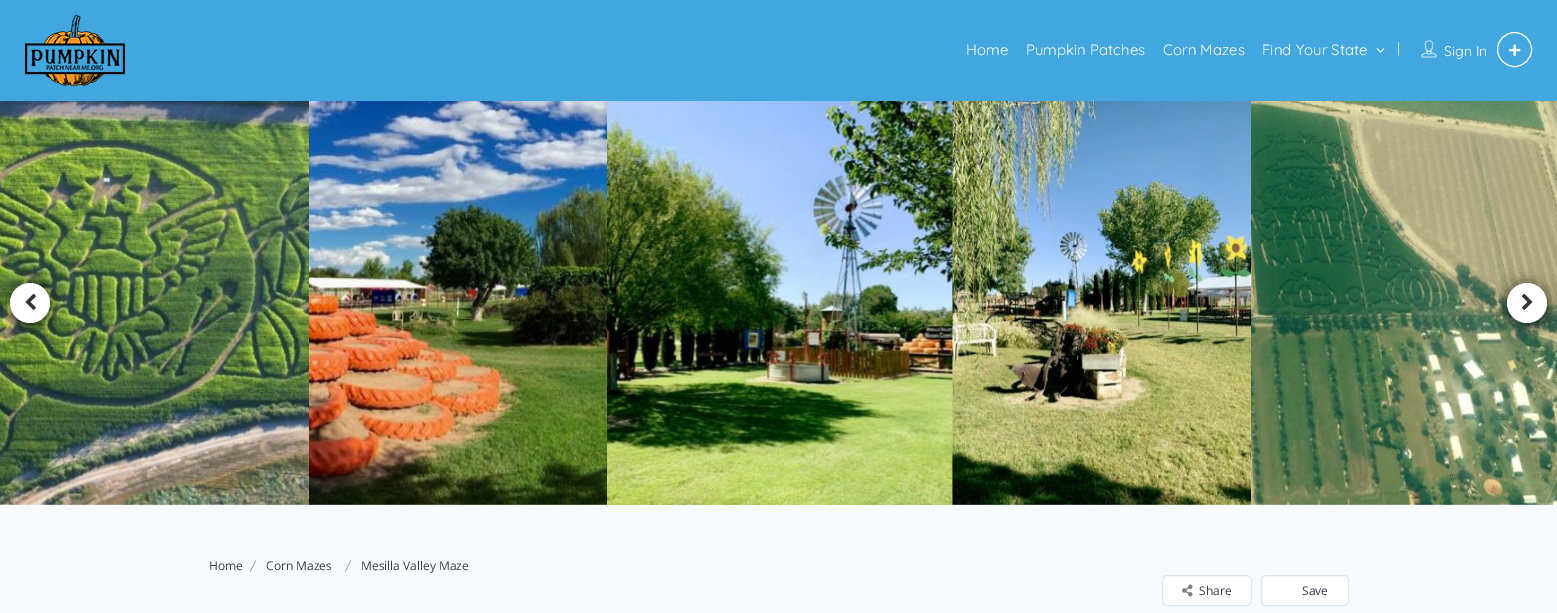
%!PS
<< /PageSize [1557 613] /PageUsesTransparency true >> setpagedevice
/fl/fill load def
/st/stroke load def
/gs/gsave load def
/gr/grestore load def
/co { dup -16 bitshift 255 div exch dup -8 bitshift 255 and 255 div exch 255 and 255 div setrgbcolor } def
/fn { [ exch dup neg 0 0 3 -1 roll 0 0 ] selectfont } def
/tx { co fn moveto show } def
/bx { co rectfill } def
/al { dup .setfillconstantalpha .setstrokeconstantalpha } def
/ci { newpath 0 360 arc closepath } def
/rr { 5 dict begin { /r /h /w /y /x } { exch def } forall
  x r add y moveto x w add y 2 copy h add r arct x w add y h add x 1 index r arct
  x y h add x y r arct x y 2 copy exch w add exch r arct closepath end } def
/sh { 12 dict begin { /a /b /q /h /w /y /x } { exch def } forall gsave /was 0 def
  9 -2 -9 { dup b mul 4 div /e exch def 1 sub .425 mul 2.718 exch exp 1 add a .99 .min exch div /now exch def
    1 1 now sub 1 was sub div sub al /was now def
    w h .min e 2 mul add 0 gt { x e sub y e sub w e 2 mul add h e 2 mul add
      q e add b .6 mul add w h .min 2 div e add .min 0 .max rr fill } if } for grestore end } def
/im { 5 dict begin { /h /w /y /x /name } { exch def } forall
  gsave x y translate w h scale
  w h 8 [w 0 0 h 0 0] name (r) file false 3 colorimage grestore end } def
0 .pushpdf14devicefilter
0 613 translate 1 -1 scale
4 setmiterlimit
0 0 1557 613 16#FFFFFF bx
0 0 1557 101 16#42A7DF bx
(media/1.raw) 25 15 100 71 im
(media/2.raw) 1376 48 9 5 im
(media/3.raw) 1421 39 16 19 im
16#FFFFFF co
1514.5 49.5 17 ci st
(media/4.raw) 1509 44 12 12 im
(media/5.raw) 0 101 309 404 im
(media/6.raw) 309 101 298 404 im
(media/8.raw) 952 101 299 404 im
(media/7.raw) 607 101 346 404 im
(media/9.raw) 1251 101 306 404 im
16#000000 co
10 284 40 40 20 7 .66 sh
16#FFFFFF co
30 303 20 ci fl
(media/10.raw) 25 293 11 17 im
16#000000 co
1507 284 40 40 20 7 .66 sh
16#FFFFFF co
1527 303 20 ci fl
(media/11.raw) 1521 293 12 17 im
0 505 1557 108 16#F7FBFE bx
16#FFFFFF co
1162.5 575.5 89 30 4.5 rr gs fl gr
16#DBE7EF co
st
(media/12.raw) 1182 584 11 13 im
16#FFFFFF co
1261.5 575.5 87 30 4.5 rr gs fl gr
16#DBE7EF co
st
(Home) 966 55 /Quicksand-Regular 15 16#FFFFFF tx
(Pumpkin Patches) 1026 55 /Quicksand-Regular 15 16#FFFFFF tx
(Corn Mazes) 1163 55 /Quicksand-Regular 15 16#FFFFFF tx
(Find Your State) 1262 55 /Quicksand-Regular 15 16#FFFFFF tx
(|) 1397 53 /Quicksand-Regular 14 16#FFFFFF tx
(Sign In) 1444 56 /Quicksand-Regular 14 16#FFFFFF tx
(Home) 209 570 /OpenSans-Regular 12 16#363F48 tx
(/) 250 570 /Quicksand-Regular 12 16#7F7F7F tx
(Corn Mazes) 266 570 /OpenSans-Regular 12 16#363F48 tx
(/) 345 570 /Quicksand-Regular 12 16#7F7F7F tx
(Mesilla Valley Maze) 361 570 /OpenSans-Regular 12 16#363F48 tx
(Share) 1199 595 /OpenSans-Regular 12 16#363F48 tx
(Save) 1302 595 /OpenSans-Regular 12 16#363F48 tx
.poppdf14devicefilter showpage
